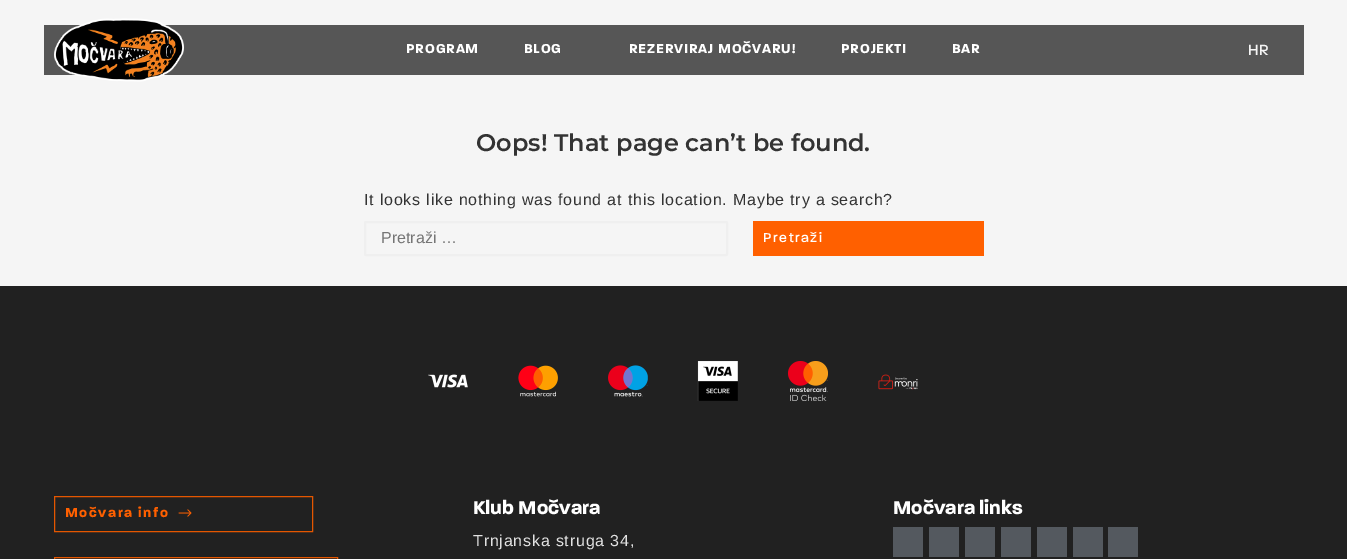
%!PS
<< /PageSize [1347 559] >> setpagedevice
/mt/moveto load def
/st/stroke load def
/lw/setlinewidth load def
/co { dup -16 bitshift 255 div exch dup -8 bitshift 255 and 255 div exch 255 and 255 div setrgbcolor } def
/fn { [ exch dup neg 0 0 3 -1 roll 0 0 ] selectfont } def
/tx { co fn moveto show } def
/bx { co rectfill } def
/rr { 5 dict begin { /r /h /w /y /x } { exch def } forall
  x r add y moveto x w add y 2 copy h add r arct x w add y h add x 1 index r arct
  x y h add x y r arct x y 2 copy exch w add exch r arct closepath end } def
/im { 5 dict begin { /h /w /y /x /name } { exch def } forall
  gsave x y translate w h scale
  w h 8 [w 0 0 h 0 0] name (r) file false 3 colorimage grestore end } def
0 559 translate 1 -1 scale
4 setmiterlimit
0 0 1347 559 16#F5F5F5 bx
44 25 1260 50 16#565656 bx
(media/1.raw) 54 18 130 64 im
16#EFEFEF co
2 lw
365 222 362 33 1 rr st
753 221 231 35 16#FF6000 bx
0 286 1347 273 16#212121 bx
(media/2.raw) 428 374 40 14 im
(media/3.raw) 518 365 40 32 im
(media/4.raw) 608 365 40 32 im
(media/5.raw) 697 361 41 40 im
(media/6.raw) 788 361 40 40 im
(media/7.raw) 878 374 40 16 im
16#E45600 co
1 lw
54.5 496.5 258 35 rectstroke
(media/8.raw) 178 509 14 8 im
54.5 557.5 283 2 rectstroke
893 527 30 30 16#54595F bx
929 527 30 30 16#54595F bx
965 527 30 30 16#54595F bx
1001 527 30 30 16#54595F bx
1037 527 30 30 16#54595F bx
1073 527 30 30 16#54595F bx
1108 527 30 30 16#54595F bx
/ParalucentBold-Bold 14 fn
16#FFFFFF co
406 53 mt .8 0 (PROGRAM) ashow
524 53 mt .8 0 (BLOG) ashow
629 53 mt .8 0 (REZERVIRAJ MOČVARU!) ashow
841 53 mt .8 0 (PROJEKTI) ashow
952 53 mt .8 0 (BAR) ashow
/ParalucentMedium-Medium 16 fn
16#F5F5F5 co
1248 55 mt .8 0 (HR) ashow
(Oops! That page can’t be found.) 476 151 /Montserrat-SemiBold 24 16#333333 tx
/LiberationSans-Regular 16 fn
364 205 mt .8 0 (It looks like nothing was found at this location. Maybe try a search?) ashow
(Pretraži …) 381 243 /LiberationSans-Regular 16 16#757575 tx
/ParalucentMedium-Medium 14 fn
16#FFFFFF co
763 242 mt 1.6 0 (Pretraži) ashow
/ParalucentBold-Bold 14 fn
16#FF6000 co
65 517 mt 1.6 0 (Močvara info) ashow
(Klub Močvara) 473 514 /ParalucentBold-Bold 20 16#FFFFFF tx
/LiberationSans-Regular 16 fn
16#E2E2E2 co
473 546 mt .8 0 (Trnjanska struga 34,) ashow
(Močvara links) 893 514 /ParalucentBold-Bold 20 16#FFFFFF tx
showpage
